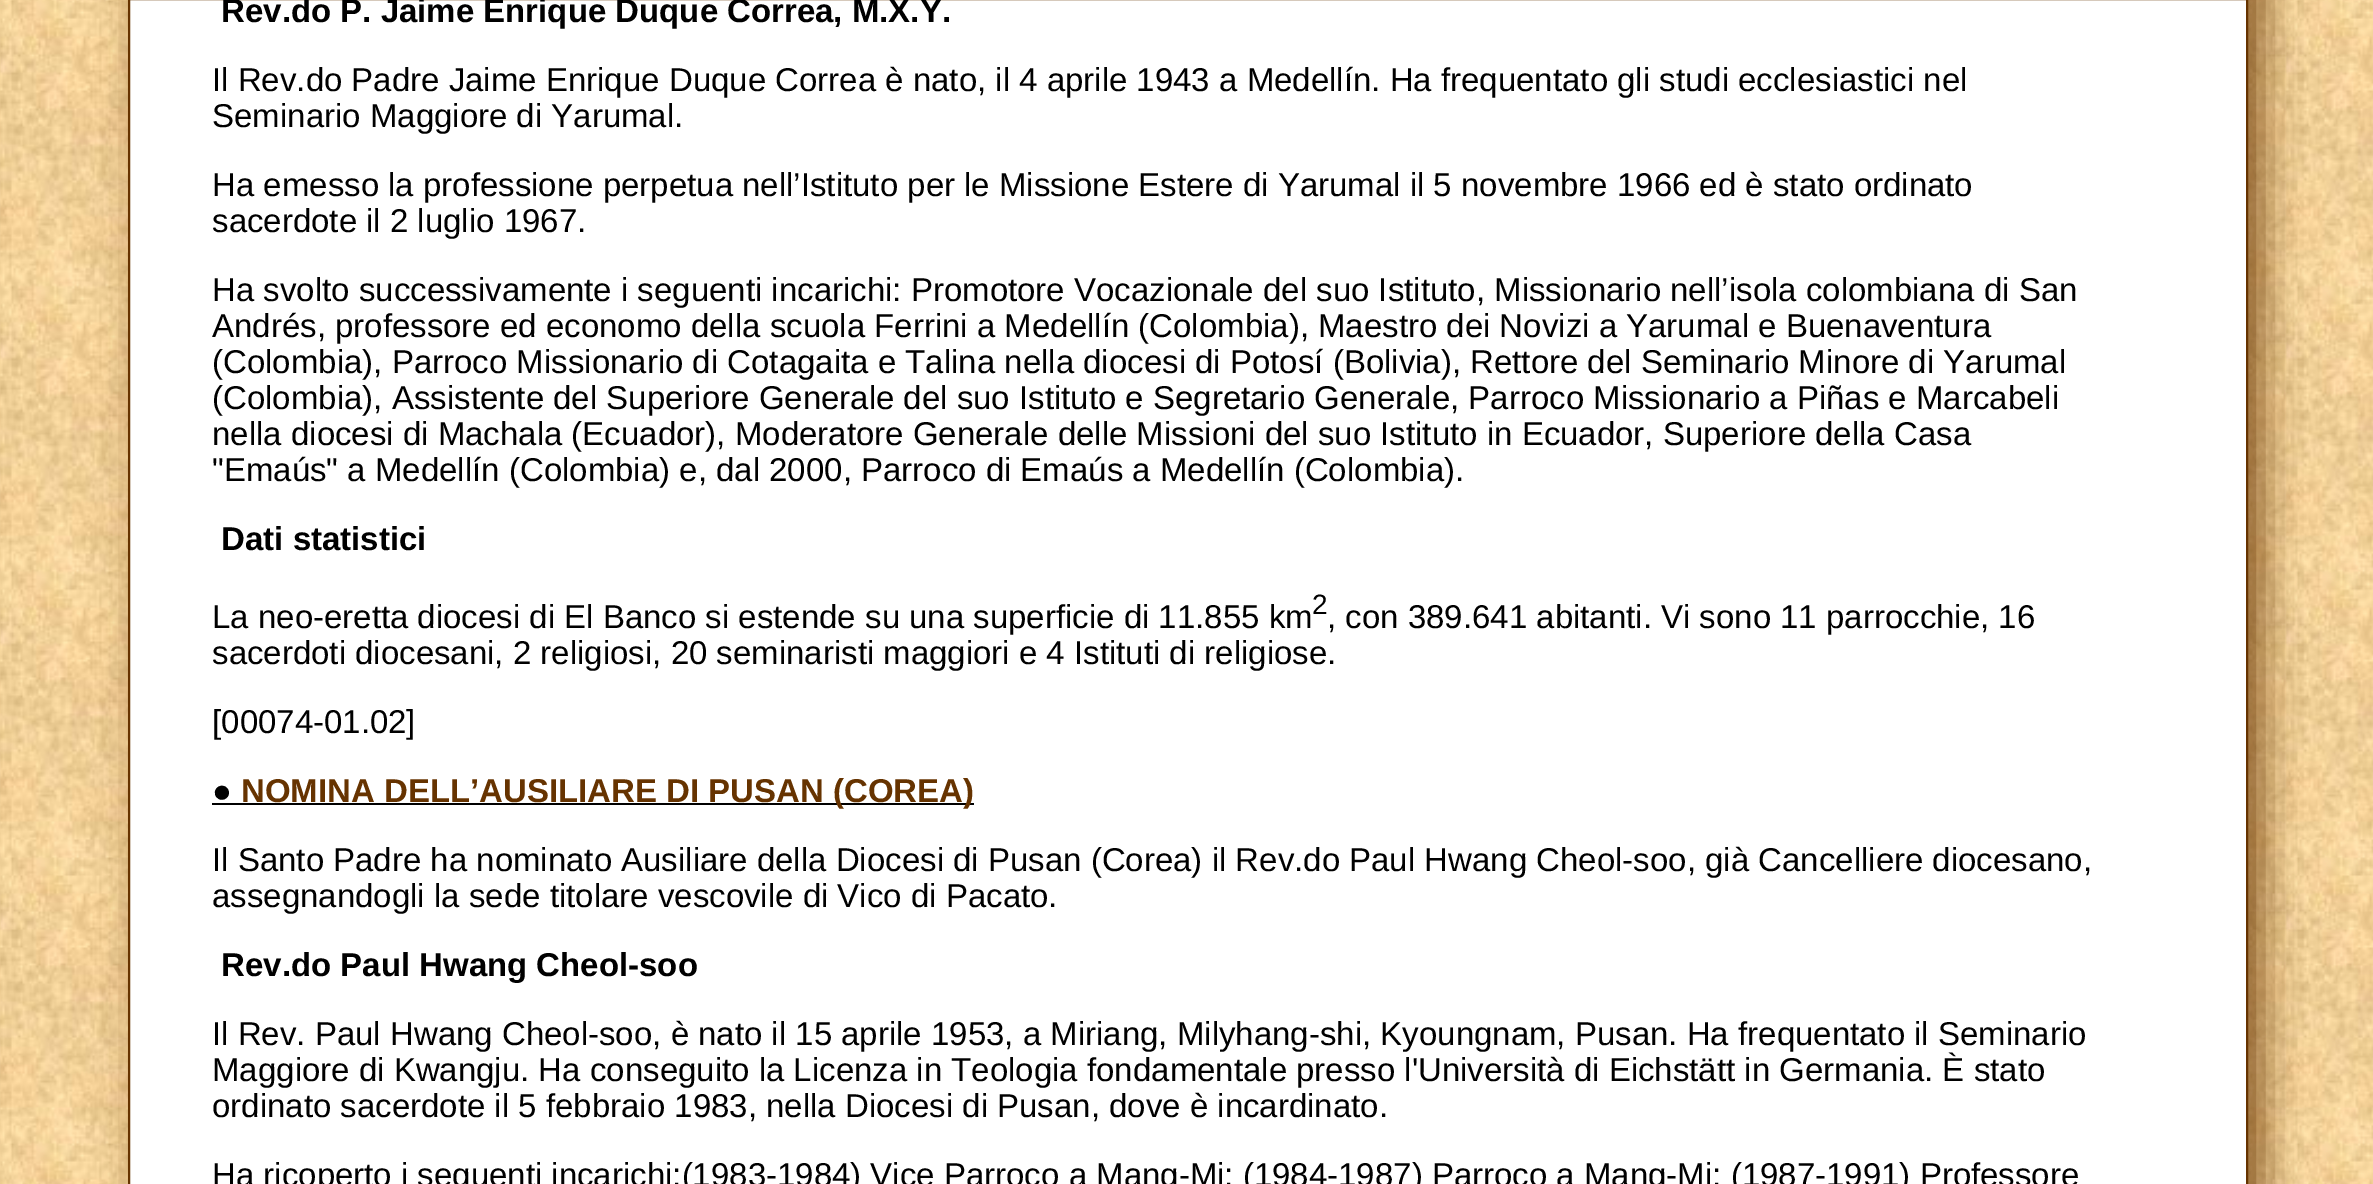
%!PS
<< /PageSize [2373 1184] /PageUsesTransparency true >> setpagedevice
/mt/moveto load def
/li/lineto load def
/cp/closepath load def
/fl/fill load def
/st/stroke load def
/gs/gsave load def
/gr/grestore load def
/lw/setlinewidth load def
/co { dup -16 bitshift 255 div exch dup -8 bitshift 255 and 255 div exch 255 and 255 div setrgbcolor } def
/fn { [ exch dup neg 0 0 3 -1 roll 0 0 ] selectfont } def
/tx { co fn moveto show } def
/bx { co rectfill } def
/al { dup .setfillconstantalpha .setstrokeconstantalpha } def
/rr { 5 dict begin { /r /h /w /y /x } { exch def } forall
  x r add y moveto x w add y 2 copy h add r arct x w add y h add x 1 index r arct
  x y h add x y r arct x y 2 copy exch w add exch r arct closepath end } def
/sh { 12 dict begin { /a /b /q /h /w /y /x } { exch def } forall gsave /was 0 def
  9 -2 -9 { dup b mul 4 div /e exch def 1 sub .425 mul 2.718 exch exp 1 add a .99 .min exch div /now exch def
    1 1 now sub 1 was sub div sub al /was now def
    w h .min e 2 mul add 0 gt { x e sub y e sub w e 2 mul add h e 2 mul add
      q e add b .6 mul add w h .min 2 div e add .min 0 .max rr fill } if } for grestore end } def
/im { 5 dict begin { /h /w /y /x /name } { exch def } forall
  gsave x y translate w h scale
  w h 8 [w 0 0 h 0 0] name (r) file false 3 colorimage grestore end } def
0 .pushpdf14devicefilter
0 1184 translate 1 -1 scale
4 setmiterlimit
0 0 2373 1184 16#FFFFFF bx
(media/1.raw) 0 0 2373 1184 im
16#663300 co
142 -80 2119 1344 23 19 .8 sh
16#FFFFFF co
129 -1 mt 2247 -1 li 2247 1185 li 129 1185 li cp gs fl gr
16#663300 co
2 lw
st
212 803 762 2 16#000000 bx
(Rev.do P. Jaime Enrique Duque Correa, M.X.Y.) 221 22 /LiberationSans-Bold 33 16#000000 tx
(Il Rev.do Padre Jaime Enrique Duque Correa è nato, il 4 aprile 1943 a Medellín. Ha frequentato gli studi ecclesiastici nel) 212 91 /LiberationSans-Regular 33 16#000000 tx
(Seminario Maggiore di Yarumal.) 212 127 /LiberationSans-Regular 33 16#000000 tx
(Ha emesso la professione perpetua nell’Istituto per le Missione Estere di Yarumal il 5 novembre 1966 ed è stato ordinato) 212 196 /LiberationSans-Regular 33 16#000000 tx
(sacerdote il 2 luglio 1967.) 212 232 /LiberationSans-Regular 33 16#000000 tx
(Ha svolto successivamente i seguenti incarichi: Promotore Vocazionale del suo Istituto, Missionario nell’isola colombiana di San) 212 301 /LiberationSans-Regular 33 16#000000 tx
(Andrés, professore ed economo della scuola Ferrini a Medellín \(Colombia\), Maestro dei Novizi a Yarumal e Buenaventura) 212 337 /LiberationSans-Regular 33 16#000000 tx
(\(Colombia\), Parroco Missionario di Cotagaita e Talina nella diocesi di Potosí \(Bolivia\), Rettore del Seminario Minore di Yarumal) 212 373 /LiberationSans-Regular 33 16#000000 tx
(\(Colombia\), Assistente del Superiore Generale del suo Istituto e Segretario Generale, Parroco Missionario a Piñas e Marcabeli) 212 409 /LiberationSans-Regular 33 16#000000 tx
(nella diocesi di Machala \(Ecuador\), Moderatore Generale delle Missioni del suo Istituto in Ecuador, Superiore della Casa) 212 445 /LiberationSans-Regular 33 16#000000 tx
("Emaús" a Medellín \(Colombia\) e, dal 2000, Parroco di Emaús a Medellín \(Colombia\).) 212 481 /LiberationSans-Regular 33 16#000000 tx
(Dati statistici) 221 550 /LiberationSans-Bold 33 16#000000 tx
(La neo-eretta diocesi di El Banco si estende su una superficie di 11.855 km) 212 628 /LiberationSans-Regular 33 16#000000 tx
(2) 1312 614 /LiberationSans-Regular 28 16#000000 tx
(, con 389.641 abitanti. Vi sono 11 parrocchie, 16) 1327 628 /LiberationSans-Regular 33 16#000000 tx
(sacerdoti diocesani, 2 religiosi, 20 seminaristi maggiori e 4 Istituti di religiose.) 212 664 /LiberationSans-Regular 33 16#000000 tx
([00074-01.02]) 212 733 /LiberationSans-Regular 33 16#000000 tx
(●) 212 802 /LiberationSans-Bold 33 16#000000 tx
(NOMINA DELL’AUSILIARE) 241 802 /LiberationSans-Bold 33 16#663300 tx
(DI PUSAN \(COREA\)) 666 802 /LiberationSans-Bold 33 16#663300 tx
(Il Santo Padre ha nominato Ausiliare della Diocesi di Pusan \(Corea\) il Rev.do Paul Hwang Cheol-soo, già Cancelliere diocesano,) 212 871 /LiberationSans-Regular 33 16#000000 tx
(assegnandogli la sede titolare vescovile di Vico di Pacato.) 212 907 /LiberationSans-Regular 33 16#000000 tx
(Rev.do Paul Hwang Cheol-soo) 221 976 /LiberationSans-Bold 33 16#000000 tx
(Il Rev. Paul Hwang Cheol-soo, è nato il 15 aprile 1953, a Miriang, Milyhang-shi, Kyoungnam, Pusan. Ha frequentato il Seminario) 212 1045 /LiberationSans-Regular 33 16#000000 tx
(Maggiore di Kwangju. Ha conseguito la Licenza in Teologia fondamentale presso l'Università di Eichstätt in Germania. È stato) 212 1081 /LiberationSans-Regular 33 16#000000 tx
(ordinato sacerdote il 5 febbraio 1983, nella Diocesi di Pusan, dove è incardinato.) 212 1117 /LiberationSans-Regular 33 16#000000 tx
(Ha ricoperto i seguenti incarichi:\(1983-1984\) Vice Parroco a Mang-Mi; \(1984-1987\) Parroco a Mang-Mi; \(1987-1991\) Professore) 212 1186 /LiberationSans-Regular 33 16#000000 tx
.poppdf14devicefilter showpage
